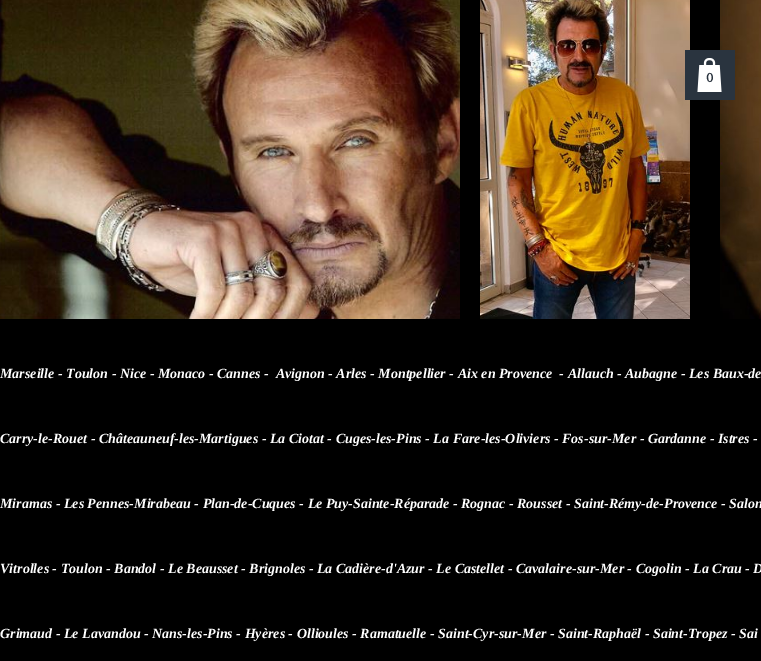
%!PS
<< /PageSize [761 661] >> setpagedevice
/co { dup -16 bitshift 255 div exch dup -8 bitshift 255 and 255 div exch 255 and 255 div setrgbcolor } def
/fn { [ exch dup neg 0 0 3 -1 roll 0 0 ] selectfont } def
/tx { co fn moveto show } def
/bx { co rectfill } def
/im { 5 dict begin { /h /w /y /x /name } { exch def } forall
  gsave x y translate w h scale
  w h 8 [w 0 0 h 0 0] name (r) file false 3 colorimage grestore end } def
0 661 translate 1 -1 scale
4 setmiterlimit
0 0 761 661 16#000000 bx
(media/3.raw) 480 0 210 319 im
(media/4.raw) 720 0 41 319 im
685 50 50 50 16#2A343F bx
(media/1.raw) 697 58 25 34 im
(media/2.raw) 0 0 460 319 im
(0) 706 82 /Amiri-Bold 14 16#2A343F tx
(Marseille - Toulon - Nice - Monaco - Cannes -  Avignon - Arles - Montpellier - Aix en Provence  - Allauch - Aubagne - Les Baux-de) 0 378 /LiberationSerif-BoldItalic 14 16#FFFFFF tx
(Carry-le-Rouet - Châteauneuf-les-Martigues - La Ciotat - Cuges-les-Pins - La Fare-les-Oliviers - Fos-sur-Mer - Gardanne - Istres -) 0 443 /LiberationSerif-BoldItalic 14 16#FFFFFF tx
(Miramas - Les Pennes-Mirabeau - Plan-de-Cuques - Le Puy-Sainte-Réparade - Rognac - Rousset - Saint-Rémy-de-Provence - Salon) 0 508 /LiberationSerif-BoldItalic 14 16#FFFFFF tx
(Vitrolles - Toulon - Bandol - Le Beausset - Brignoles - La Cadière-d'Azur - Le Castellet - Cavalaire-sur-Mer - Cogolin - La Crau - D) 0 573 /LiberationSerif-BoldItalic 14 16#FFFFFF tx
(Grimaud - Le Lavandou - Nans-les-Pins - Hyères - Ollioules - Ramatuelle - Saint-Cyr-sur-Mer - Saint-Raphaël - Saint-Tropez - Sai) 0 638 /LiberationSerif-BoldItalic 14 16#FFFFFF tx
showpage
